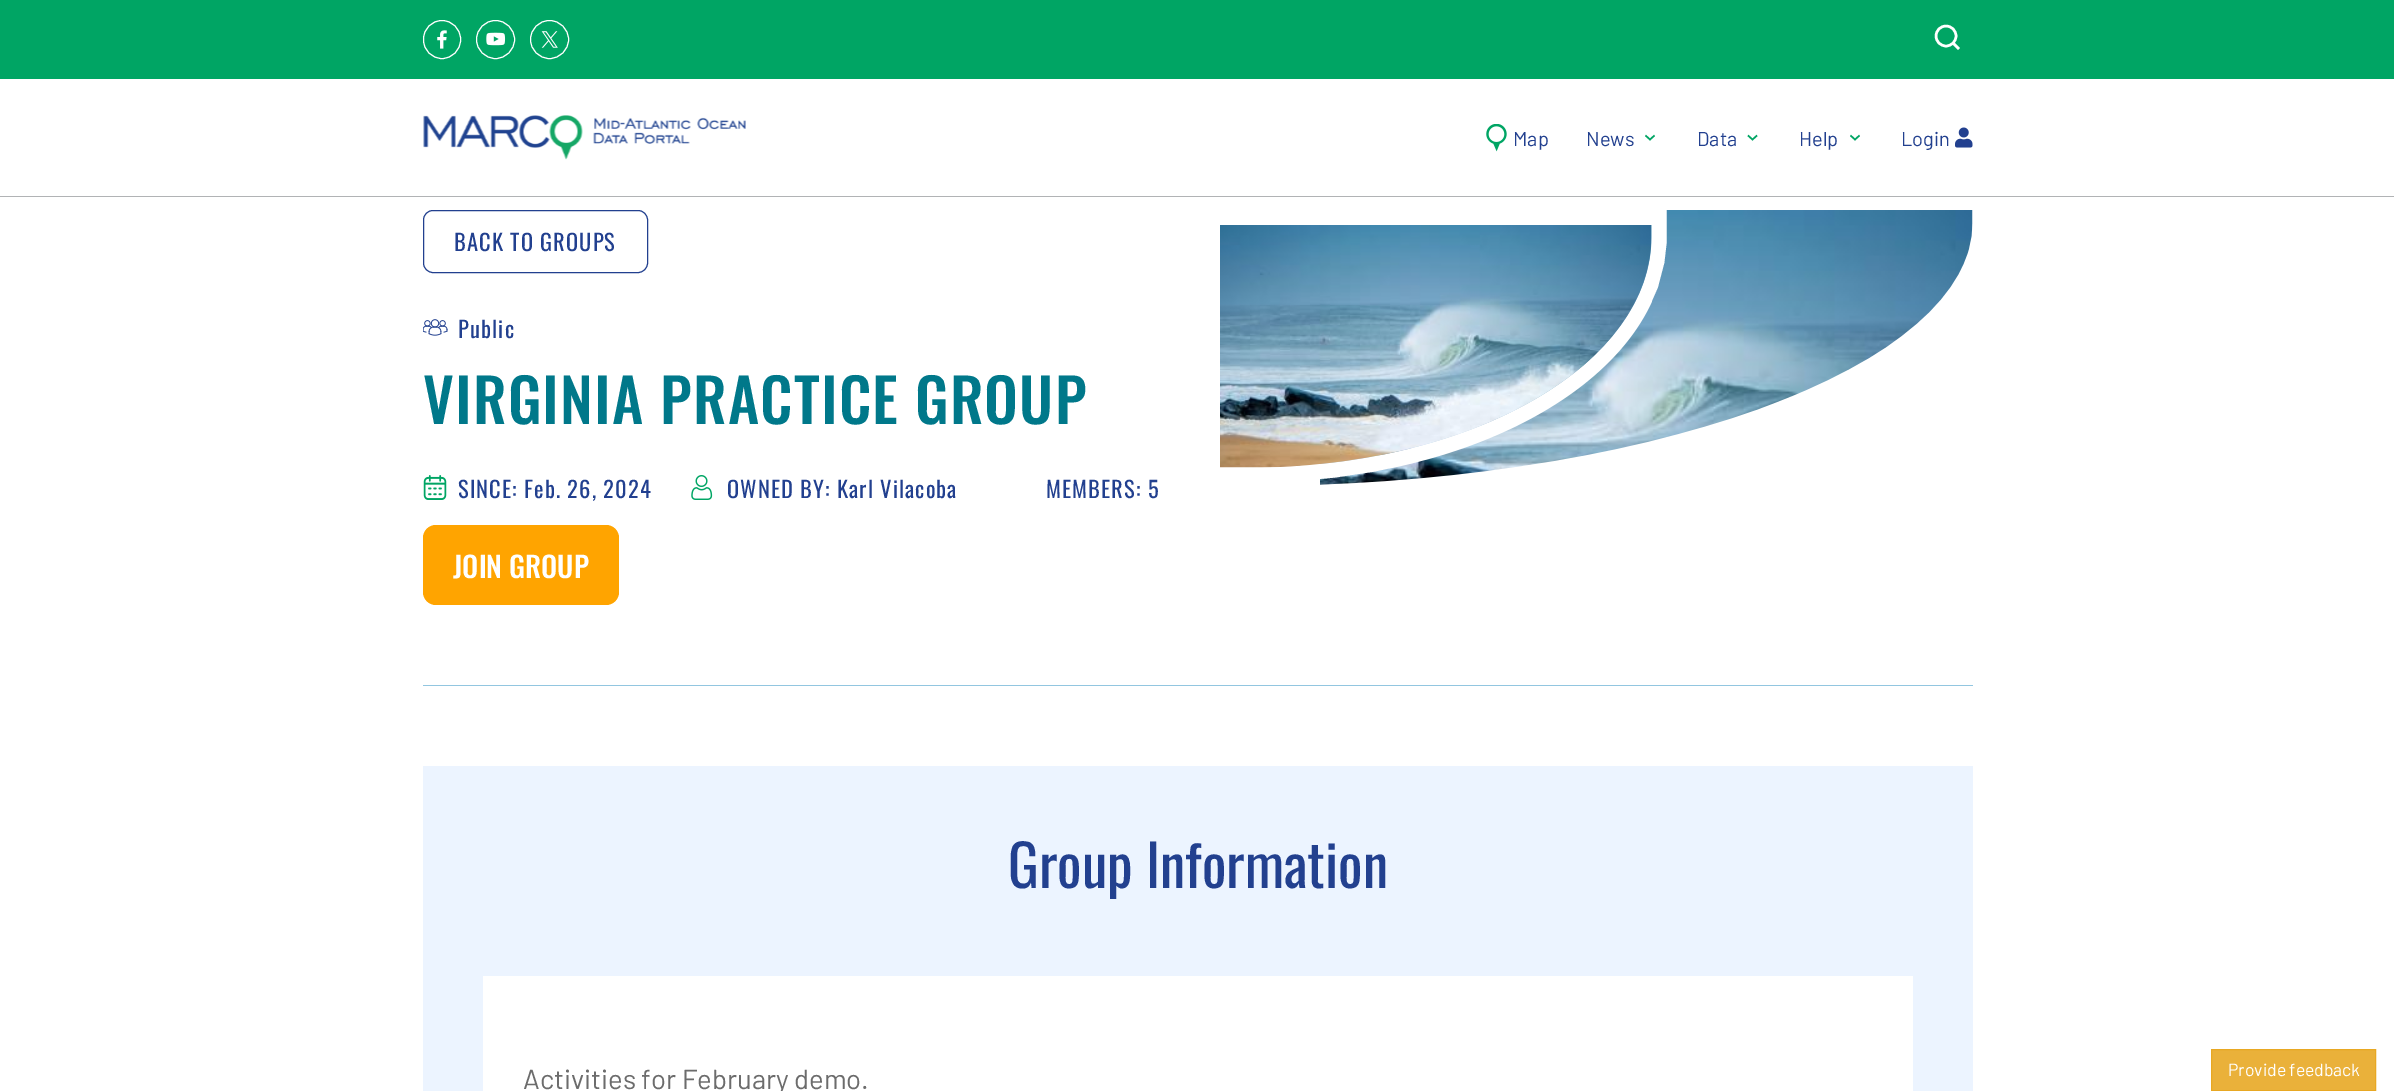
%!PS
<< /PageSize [2394 1091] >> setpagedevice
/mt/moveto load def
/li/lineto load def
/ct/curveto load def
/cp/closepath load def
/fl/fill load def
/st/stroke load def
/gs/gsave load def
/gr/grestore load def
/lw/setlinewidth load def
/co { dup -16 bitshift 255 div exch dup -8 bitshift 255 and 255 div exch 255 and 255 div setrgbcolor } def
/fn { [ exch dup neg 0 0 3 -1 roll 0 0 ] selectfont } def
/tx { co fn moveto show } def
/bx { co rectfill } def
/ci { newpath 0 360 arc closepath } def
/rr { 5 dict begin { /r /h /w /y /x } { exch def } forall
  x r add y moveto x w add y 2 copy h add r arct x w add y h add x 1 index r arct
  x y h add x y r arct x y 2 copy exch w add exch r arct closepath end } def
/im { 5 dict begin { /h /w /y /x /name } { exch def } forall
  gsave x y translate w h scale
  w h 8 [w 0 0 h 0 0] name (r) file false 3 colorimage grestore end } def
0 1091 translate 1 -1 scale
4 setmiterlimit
0 0 2394 1091 16#FFFFFF bx
0 0 2394 79 16#00A564 bx
16#FFFFFF co
423.5 20.5 37 38 18.5 rr st
(media/1.raw) 437 30 10 19 im
495.5 39.5 19 ci st
(media/2.raw) 486 32 20 14 im
549.5 39.5 19 ci st
(media/3.raw) 541 31 17 17 im
2.5 lw
1946 36 10 ci st
1959 49 mt 1953.5 43.5 li st
0 196 2394 1 16#B1B3B5 bx
(media/4.raw) 423 115 323 45 im
(media/5.raw) 1486 124 21 28 im
16#00A564 co
1.5 lw
1645.5 135.5 mt 1650 139.5 li 1654.5 135.5 li st
1748 135.5 mt 1752.5 139.5 li 1757 135.5 li st
1850.5 135.5 mt 1855 139.5 li 1859.5 135.5 li st
(media/6.raw) 1955 127 18 21 im
423 685 1550 1 16#92C6E0 bx
16#22408F co
1 lw
423.5 210.5 224 62 9.5 rr st
(media/7.raw) 423 319 25 17 im
(media/8.raw) 423 475 24 25 im
(media/9.raw) 691 475 22 25 im
16#FFA400 co
423 525 196 80 13 rr fl
(media/10.raw) 1320 210 653 275 im
16#FFFFFF co
15 lw
1212.5 217.5 mt 1659 217.5 li 1659 237 li 1659 368.5 1476.5 475 1251 475 ct 1212.5 475 li cp st
(media/11.raw) 1220 225 432 243 im
423 766 1550 325 16#ECF4FF bx
483 976 1430 115 16#FFFFFF bx
16#EAB13A co
2211.5 1049.5 mt 2375.5 1049.5 li 2375.5 1090.5 li 2211.5 1090.5 li cp gs fl gr
16#E8A823 co
1 lw
st
(Map) 1513 146 /Barlow-Regular 20 16#22408F tx
(News) 1586 146 /Barlow-Regular 20 16#22408F tx
(Data) 1697 146 /Barlow-Regular 20 16#22408F tx
(Help) 1799 146 /Barlow-Regular 20 16#22408F tx
(Login) 1901 146 /Barlow-Regular 20 16#22408F tx
/Oswald-Regular 22.5 fn
454 251 mt 1.1 0 (BACK TO GROUPS) ashow
458 338 mt 1.1 0 (Public) ashow
/Oswald-Medium 60 fn
16#00788A co
423 424 mt 1.2 0 (VIRGINIA PRACTICE GROUP) ashow
/Oswald-Regular 22.5 fn
16#22408F co
458 498 mt 1.1 0 (SINCE: Feb. 26, 2024) ashow
727 498 mt 1.1 0 (OWNED BY: Karl Vilacoba) ashow
1046 498 mt 1.1 0 (MEMBERS: 5) ashow
(JOIN GROUP) 453 578 /Oswald-Medium 28.75 16#FFFFFF tx
(Group Information) 1008 888 /Oswald-Regular 57.5 16#22408F tx
(Activities for February demo.) 523 1089 /Barlow-Regular 27.5 16#6C6C6C tx
(Provide feedback) 2228 1076 /Barlow-Regular 17.5 16#FFFFFF tx
showpage
